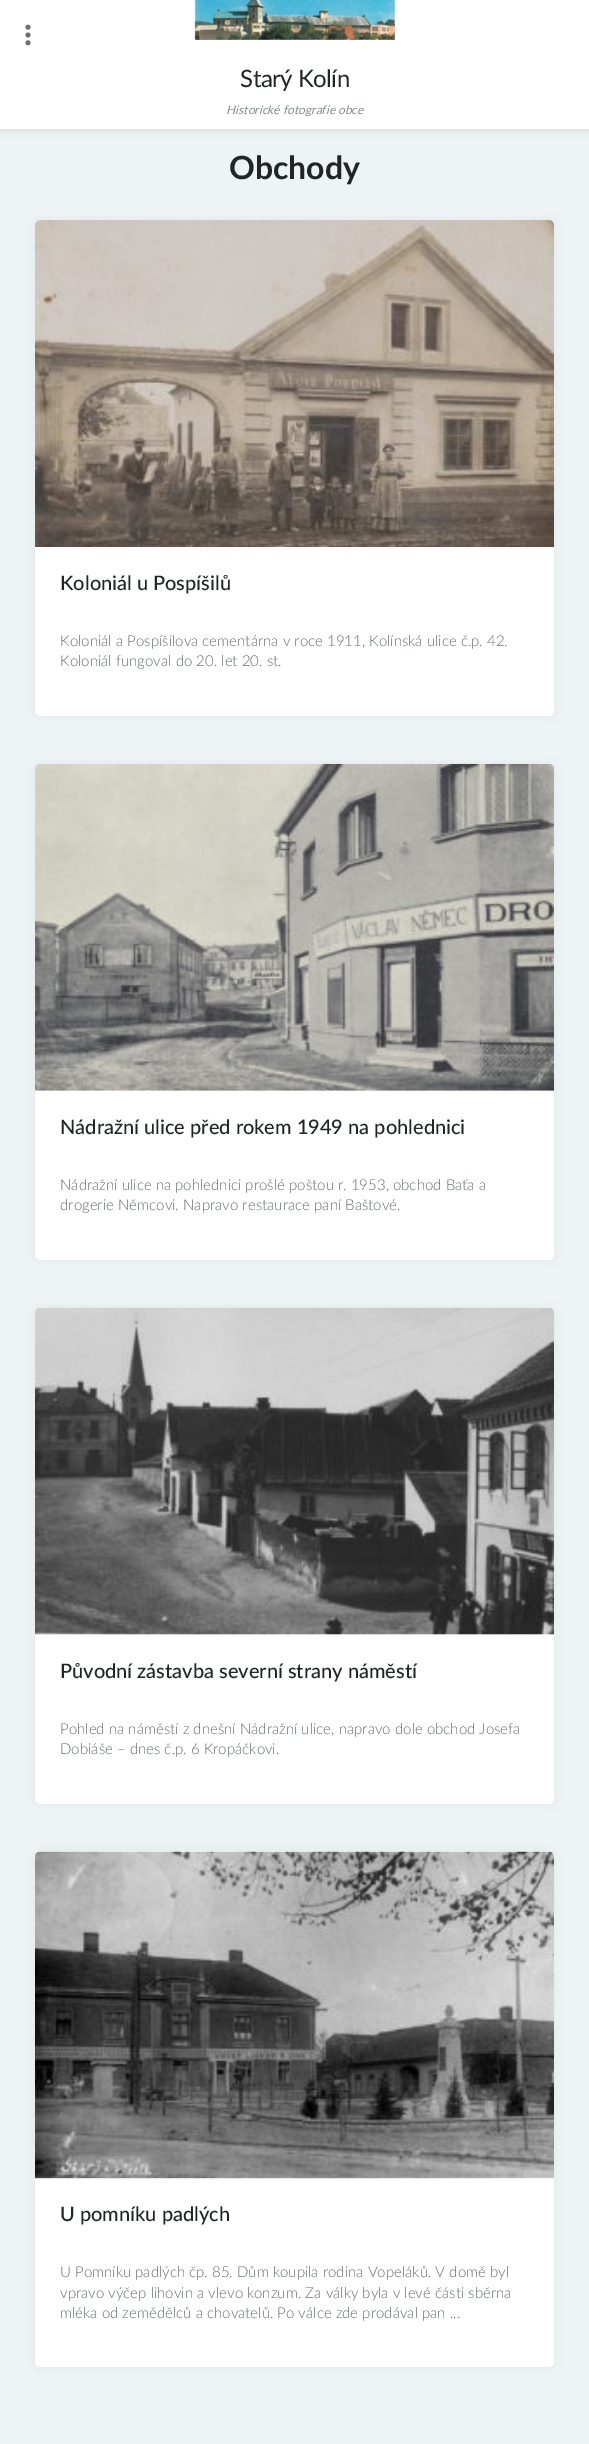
%!PS
<< /PageSize [589 2444] /PageUsesTransparency true >> setpagedevice
/mt/moveto load def
/fl/fill load def
/co { dup -16 bitshift 255 div exch dup -8 bitshift 255 and 255 div exch 255 and 255 div setrgbcolor } def
/fn { [ exch dup neg 0 0 3 -1 roll 0 0 ] selectfont } def
/tx { co fn moveto show } def
/bx { co rectfill } def
/al { dup .setfillconstantalpha .setstrokeconstantalpha } def
/rr { 5 dict begin { /r /h /w /y /x } { exch def } forall
  x r add y moveto x w add y 2 copy h add r arct x w add y h add x 1 index r arct
  x y h add x y r arct x y 2 copy exch w add exch r arct closepath end } def
/sh { 12 dict begin { /a /b /q /h /w /y /x } { exch def } forall gsave /was 0 def
  9 -2 -9 { dup b mul 4 div /e exch def 1 sub .425 mul 2.718 exch exp 1 add a .99 .min exch div /now exch def
    1 1 now sub 1 was sub div sub al /was now def
    w h .min e 2 mul add 0 gt { x e sub y e sub w e 2 mul add h e 2 mul add
      q e add b .6 mul add w h .min 2 div e add .min 0 .max rr fill } if } for grestore end } def
/im { 5 dict begin { /h /w /y /x /name } { exch def } forall
  gsave x y translate w h scale
  w h 8 [w 0 0 h 0 0] name (r) file false 3 colorimage grestore end } def
0 .pushpdf14devicefilter
0 2444 translate 1 -1 scale
4 setmiterlimit
0 0 589 2444 16#EEF3F5 bx
16#222527 co
0 0 589 129 0 5 .15 sh
0 0 589 129 16#FFFFFF bx
(media/1.raw) 25 24 6 22 im
(media/2.raw) 194 0 201 40 im
16#222527 co
35 220 519 496 5 5 .05 sh
16#FFFFFF co
35 220 519 496 5 rr fl
(media/3.raw) 35 220 519 327 im
16#222527 co
35 764 519 496 5 5 .05 sh
16#FFFFFF co
35 764 519 496 5 rr fl
(media/4.raw) 35 763 519 328 im
16#222527 co
35 1308 519 496 5 5 .05 sh
16#FFFFFF co
35 1308 519 496 5 rr fl
(media/5.raw) 35 1307 519 328 im
16#222527 co
35 1851 519 516 5 5 .05 sh
16#FFFFFF co
35 1851 519 516 5 rr fl
(media/6.raw) 35 1851 519 328 im
/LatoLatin-Regular 24 fn
16#222527 co
240 87 mt -.5 0 (Starý Kolín) ashow
(Historické fotografie obce) 226 114 /LatoLatin-Italic 12 16#888D90 tx
(Obchody) 229 179 /LatoLatin-Bold 32 16#222527 tx
(Koloniál u Pospíšilů) 60 590 /LatoLatin-Medium 20 16#222527 tx
(Koloniál a Pospíšilova cementárna v roce 1911, Kolínská ulice č.p. 42.) 60 646 /LatoLatin-Light 15 16#676D70 tx
(Koloniál fungoval do 20. let 20. st.) 60 666 /LatoLatin-Light 15 16#676D70 tx
(Nádražní ulice před rokem 1949 na pohlednici) 60 1134 /LatoLatin-Medium 20 16#222527 tx
(Nádražní ulice na pohlednici prošlé poštou r. 1953, obchod Baťa a) 60 1190 /LatoLatin-Light 15 16#676D70 tx
(drogerie Němcovi. Napravo restaurace paní Baštové.) 60 1210 /LatoLatin-Light 15 16#676D70 tx
(Původní zástavba severní strany náměstí) 60 1678 /LatoLatin-Medium 20 16#222527 tx
(Pohled na náměstí z dnešní Nádražní ulice, napravo dole obchod Josefa) 60 1734 /LatoLatin-Light 15 16#676D70 tx
(Dobiáše – dnes č.p. 6 Kropáčkovi.) 60 1754 /LatoLatin-Light 15 16#676D70 tx
(U pomníku padlých) 60 2221 /LatoLatin-Medium 20 16#222527 tx
(U Pomníku padlých čp. 85. Dům koupila rodina Vopeláků. V domě byl) 60 2277 /LatoLatin-Light 15 16#676D70 tx
(vpravo výčep lihovin a vlevo konzum. Za války byla v levé části sběrna) 60 2298 /LatoLatin-Light 15 16#676D70 tx
(mléka od zemědělců a chovatelů. Po válce zde prodával pan ...) 60 2318 /LatoLatin-Light 15 16#676D70 tx
.poppdf14devicefilter showpage
